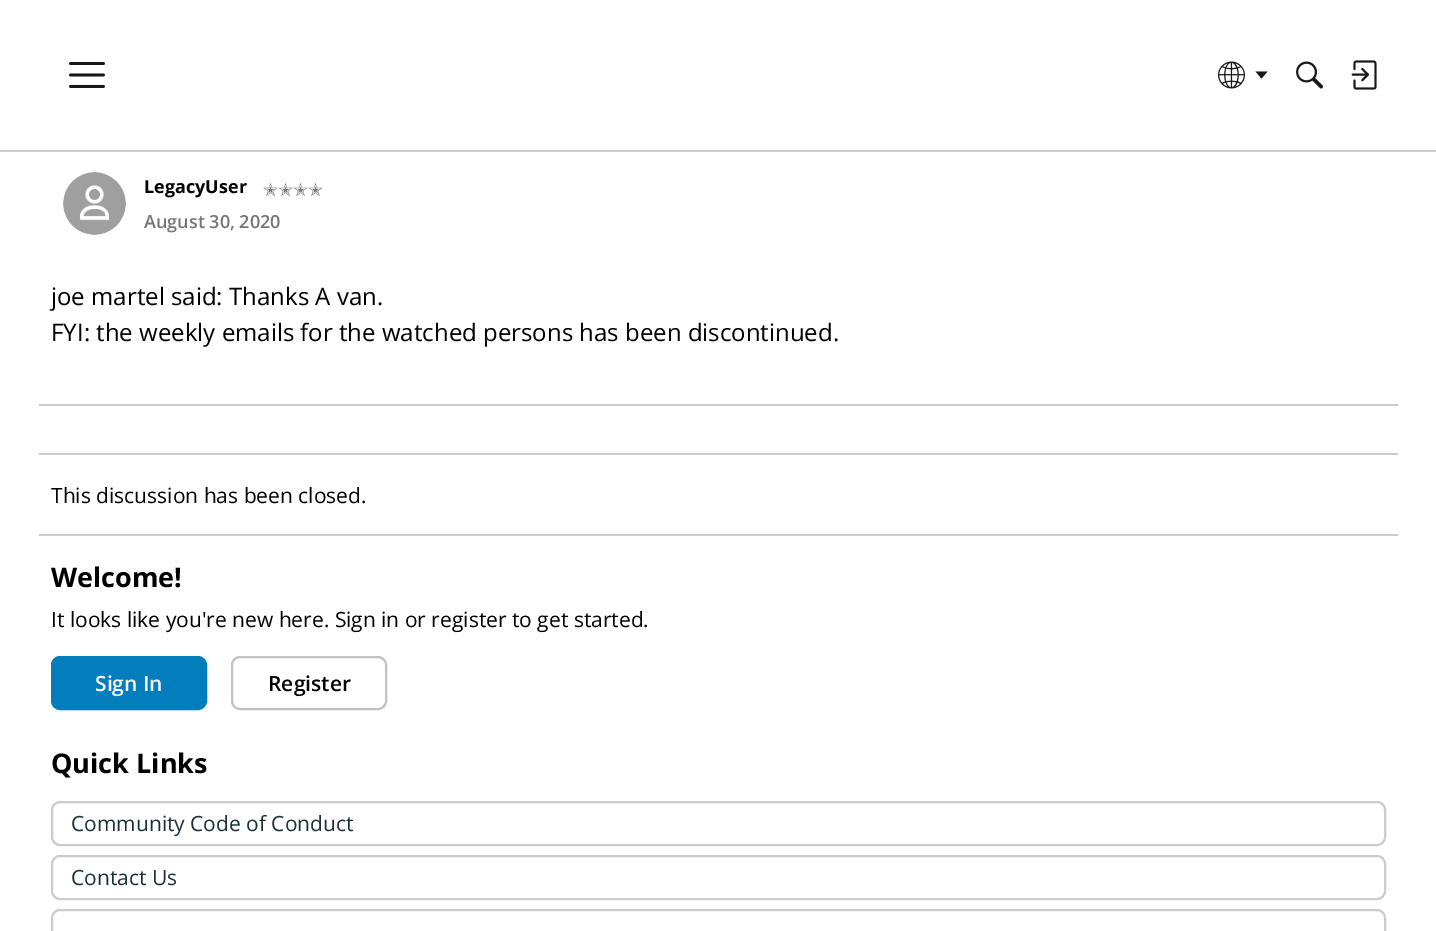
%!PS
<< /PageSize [1436 931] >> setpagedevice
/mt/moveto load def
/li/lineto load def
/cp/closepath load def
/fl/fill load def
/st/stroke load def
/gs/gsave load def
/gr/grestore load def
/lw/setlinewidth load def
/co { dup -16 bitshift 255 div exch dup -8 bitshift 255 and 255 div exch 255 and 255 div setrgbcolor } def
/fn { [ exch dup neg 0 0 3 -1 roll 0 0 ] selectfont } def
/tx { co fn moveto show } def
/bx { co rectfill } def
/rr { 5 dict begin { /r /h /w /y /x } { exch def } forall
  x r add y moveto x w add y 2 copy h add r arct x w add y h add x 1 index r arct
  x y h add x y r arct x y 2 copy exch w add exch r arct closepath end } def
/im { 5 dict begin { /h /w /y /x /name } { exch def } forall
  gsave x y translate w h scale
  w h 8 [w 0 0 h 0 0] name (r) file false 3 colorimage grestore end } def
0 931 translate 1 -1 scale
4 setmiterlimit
0 0 1436 931 16#FFFFFF bx
0 150 1436 2 16#CCCCCC bx
(media/1.raw) 69 62 36 26 im
(media/2.raw) 1218 61 27 28 im
16#17171E co
1255.5 71.5 mt 1267.5 71.5 li 1261.5 78.5 li cp fl
(media/3.raw) 1296 61 27 28 im
(media/4.raw) 1351 60 26 30 im
(media/5.raw) 63 172 63 63 im
39 404 1359 2 16#CCCCCC bx
39 453 1359 2 16#CCCCCC bx
39 534 1359 2 16#CCCCCC bx
16#037DBC co
52 657 154 52 8 rr gs fl gr
2 lw
st
16#C2C2C2 co
232 657 154 52 8 rr st
16#CCCCCC co
52 802 1333 43 8 rr st
52 856 1333 43 8 rr st
52 910 1333 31 8 rr st
(LegacyUser) 144 193 /OpenSans-Bold 18 16#000000 tx
(✭✭✭✭) 263 196 /DejaVuSans-Regular 18 16#767676 tx
(August 30, 2020) 144 228 /OpenSans-SemiBold 18 16#767676 tx
(joe martel said: Thanks A van.) 51 305 /OpenSans-Regular 24 16#000000 tx
(FYI: the weekly emails for the watched persons has been discontinued.) 51 341 /OpenSans-Regular 24 16#000000 tx
(This discussion has been closed.) 51 503 /OpenSans-Regular 21 16#000000 tx
(Welcome!) 51 587 /OpenSans-Bold 27 16#000000 tx
(It looks like you're new here. Sign in or register to get started.) 51 627 /OpenSans-Regular 21 16#000000 tx
(Sign In) 95 691 /OpenSans-SemiBold 21 16#FFFFFF tx
(Register) 268 691 /OpenSans-SemiBold 21 16#000000 tx
(Quick Links) 51 773 /OpenSans-Bold 27 16#000000 tx
(Community Code of Conduct) 71 831 /OpenSans-Regular 21 16#1B3139 tx
(Contact Us) 71 885 /OpenSans-Regular 21 16#1B3139 tx
showpage
